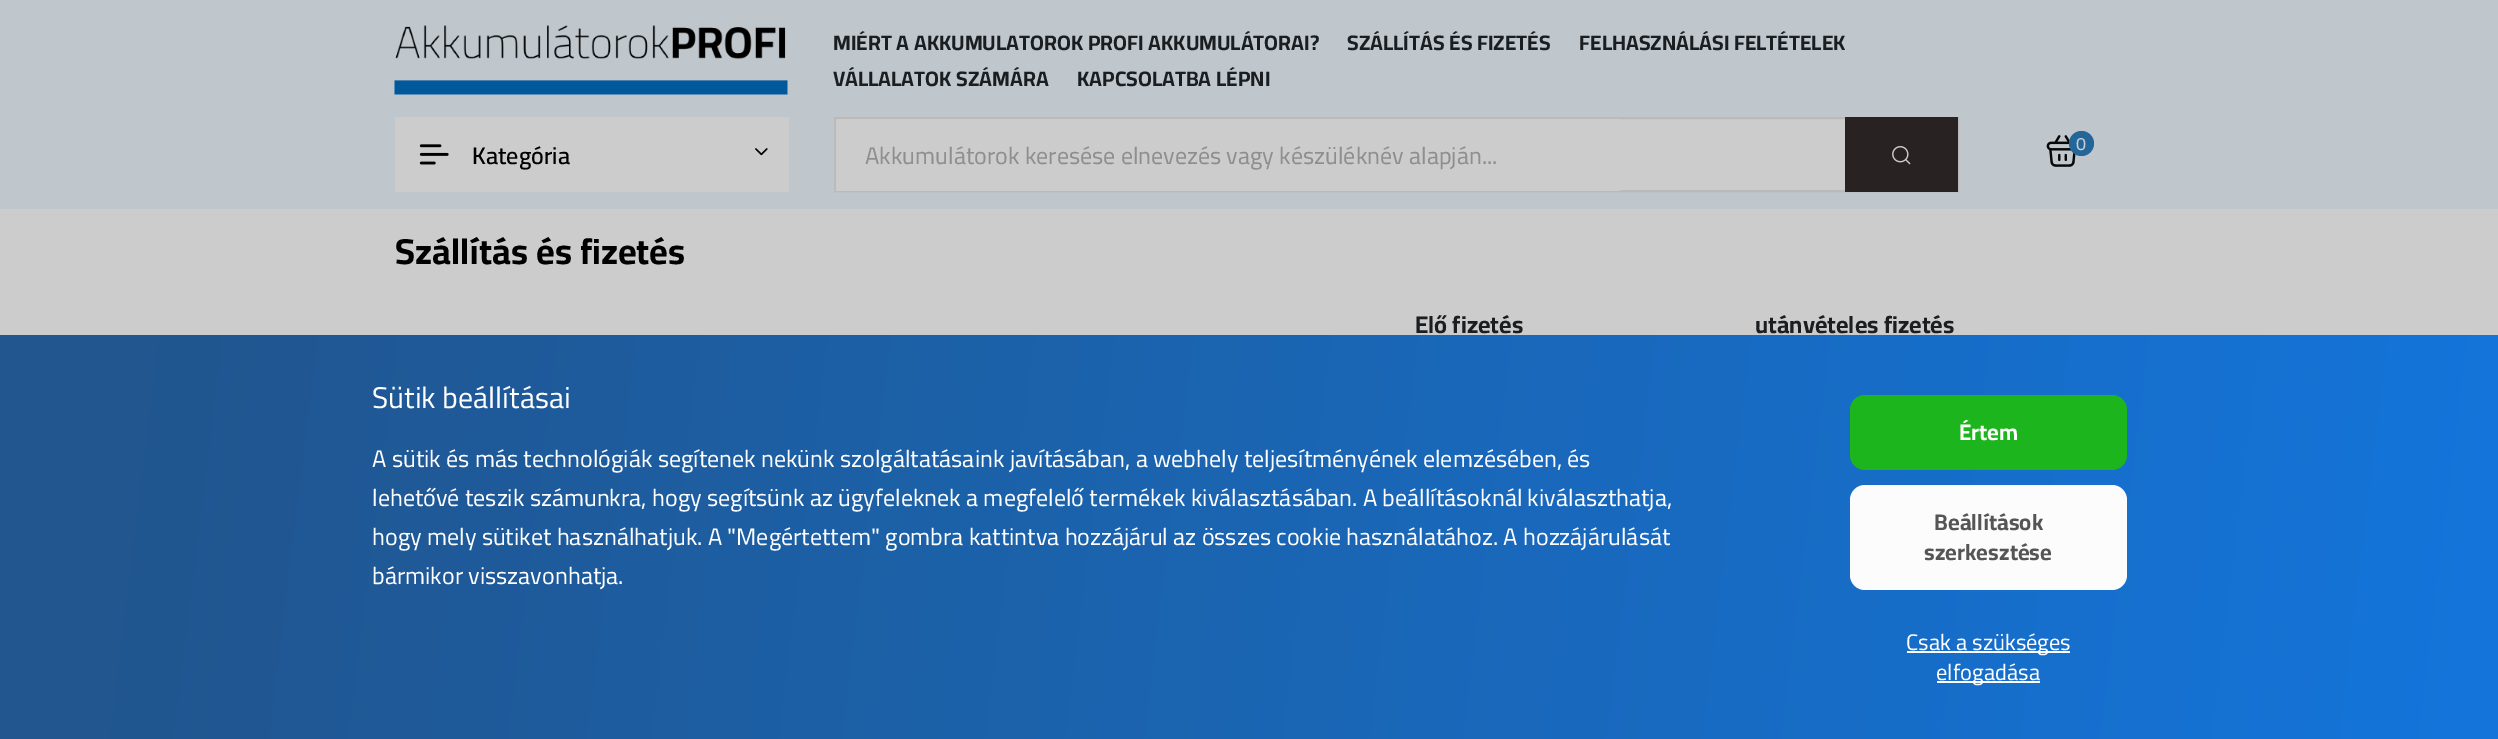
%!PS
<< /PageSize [2498 739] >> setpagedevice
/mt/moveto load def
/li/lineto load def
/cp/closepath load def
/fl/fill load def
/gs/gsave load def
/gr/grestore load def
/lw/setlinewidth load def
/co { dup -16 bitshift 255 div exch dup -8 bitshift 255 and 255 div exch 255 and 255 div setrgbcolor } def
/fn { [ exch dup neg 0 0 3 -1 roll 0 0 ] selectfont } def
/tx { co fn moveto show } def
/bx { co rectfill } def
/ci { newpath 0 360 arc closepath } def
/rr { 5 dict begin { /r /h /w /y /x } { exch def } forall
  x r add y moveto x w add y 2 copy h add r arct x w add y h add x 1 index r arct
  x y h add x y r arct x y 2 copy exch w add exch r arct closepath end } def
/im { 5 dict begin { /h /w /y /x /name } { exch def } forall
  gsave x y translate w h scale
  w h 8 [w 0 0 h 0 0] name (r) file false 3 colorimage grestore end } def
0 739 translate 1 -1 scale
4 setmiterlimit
0 0 2498 739 16#CCCCCC bx
0 0 2498 209 16#BFC6CC bx
(media/1.raw) 394 25 394 70 im
395 117 394 75 16#CCCCCC bx
(media/2.raw) 419 144 30 21 im
(media/3.raw) 755 148 13 8 im
(media/4.raw) 2046 135 30 32 im
16#22669A co
2081.5 143.5 12.5 ci fl
1620 119 225 71 16#CCCCCC bx
16#BABABA co
2 lw
835 118 1123 73 rectstroke
836 119 784 72 16#CCCCCC bx
1845 117 113 75 16#292222 bx
(media/5.raw) 1892 146 19 19 im
gs 0 335 mt 2498 335 li 2498 739 li 0 739 li cp clip newpath
<< /ShadingType 2 /ColorSpace /DeviceRGB /Coords [-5.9 383 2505 691] /Extend [true true] /Function << /FunctionType 3 /Domain [0 1] /Functions [<< /FunctionType 2 /Domain [0 1] /C0 [.129 .337 .557] /C1 [.129 .337 .557] /N 1 >> << /FunctionType 2 /Domain [0 1] /C0 [.129 .337 .557] /C1 [.078 .459 .859] /N 1 >>] /Bounds [.05] /Encode [0 1 0 1] >> >> shfill gr
16#1DB51D co
1850 395 277 75 15 rr fl
16#FCFCFC co
1850 485 277 105 15 rr fl
1907 651 163 2 16#FFFFFF bx
1937 681 103 2 16#FFFFFF bx
(MIÉRT A AKKUMULATOROK PROFI AKKUMULÁTORAI?) 833 50 /Cairo-Bold 21 16#1A1E21 tx
(SZÁLLÍTÁS ÉS FIZETÉS) 1347 50 /Cairo-Bold 21 16#1A1E21 tx
(FELHASZNÁLÁSI FELTÉTELEK) 1579 50 /Cairo-Bold 21 16#1A1E21 tx
(VÁLLALATOK SZÁMÁRA) 833 86 /Cairo-Bold 21 16#1A1E21 tx
(KAPCSOLATBA LÉPNI) 1077 86 /Cairo-Bold 21 16#1A1E21 tx
(Kategória) 472 164 /Cairo-SemiBold 24 16#000000 tx
(0) 2076 150 /Cairo-Medium 18 16#CCCCCC tx
(Akkumulátorok keresése elnevezés vagy készüléknév alapján...) 865 164 /Cairo-Regular 24 16#8E8E8E tx
(Szállítás és fizetés) 395 264 /Cairo-Bold 36 16#000000 tx
(Elő fizetés) 1415 333 /Cairo-Bold 24 16#1A1E21 tx
(utánvételes fizetés) 1755 333 /Cairo-Bold 24 16#1A1E21 tx
(Sütik beállításai) 372 408 /Cairo-Regular 30 16#FFFFFF tx
(A sütik és más technológiák segítenek nekünk szolgáltatásaink javításában, a webhely teljesítményének elemzésében, és) 372 467 /Cairo-Regular 24 16#FFFFFF tx
(lehetővé teszik számunkra, hogy segítsünk az ügyfeleknek a megfelelő termékek kiválasztásában. A beállításoknál kiválaszthatja,) 372 506 /Cairo-Regular 24 16#FFFFFF tx
(hogy mely sütiket használhatjuk. A "Megértettem" gombra kattintva hozzájárul az összes cookie használatához. A hozzájárulását) 372 545 /Cairo-Regular 24 16#FFFFFF tx
(bármikor visszavonhatja.) 372 584 /Cairo-Regular 24 16#FFFFFF tx
(Értem) 1959 440 /Cairo-Bold 22.5 16#FFFFFF tx
(Beállítások) 1934 530 /Cairo-Bold 22.5 16#555555 tx
(szerkesztése) 1924 560 /Cairo-Bold 22.5 16#555555 tx
(Csak a szükséges) 1906 650 /Cairo-Regular 22.5 16#FFFFFF tx
(elfogadása) 1936 680 /Cairo-Regular 22.5 16#FFFFFF tx
showpage
